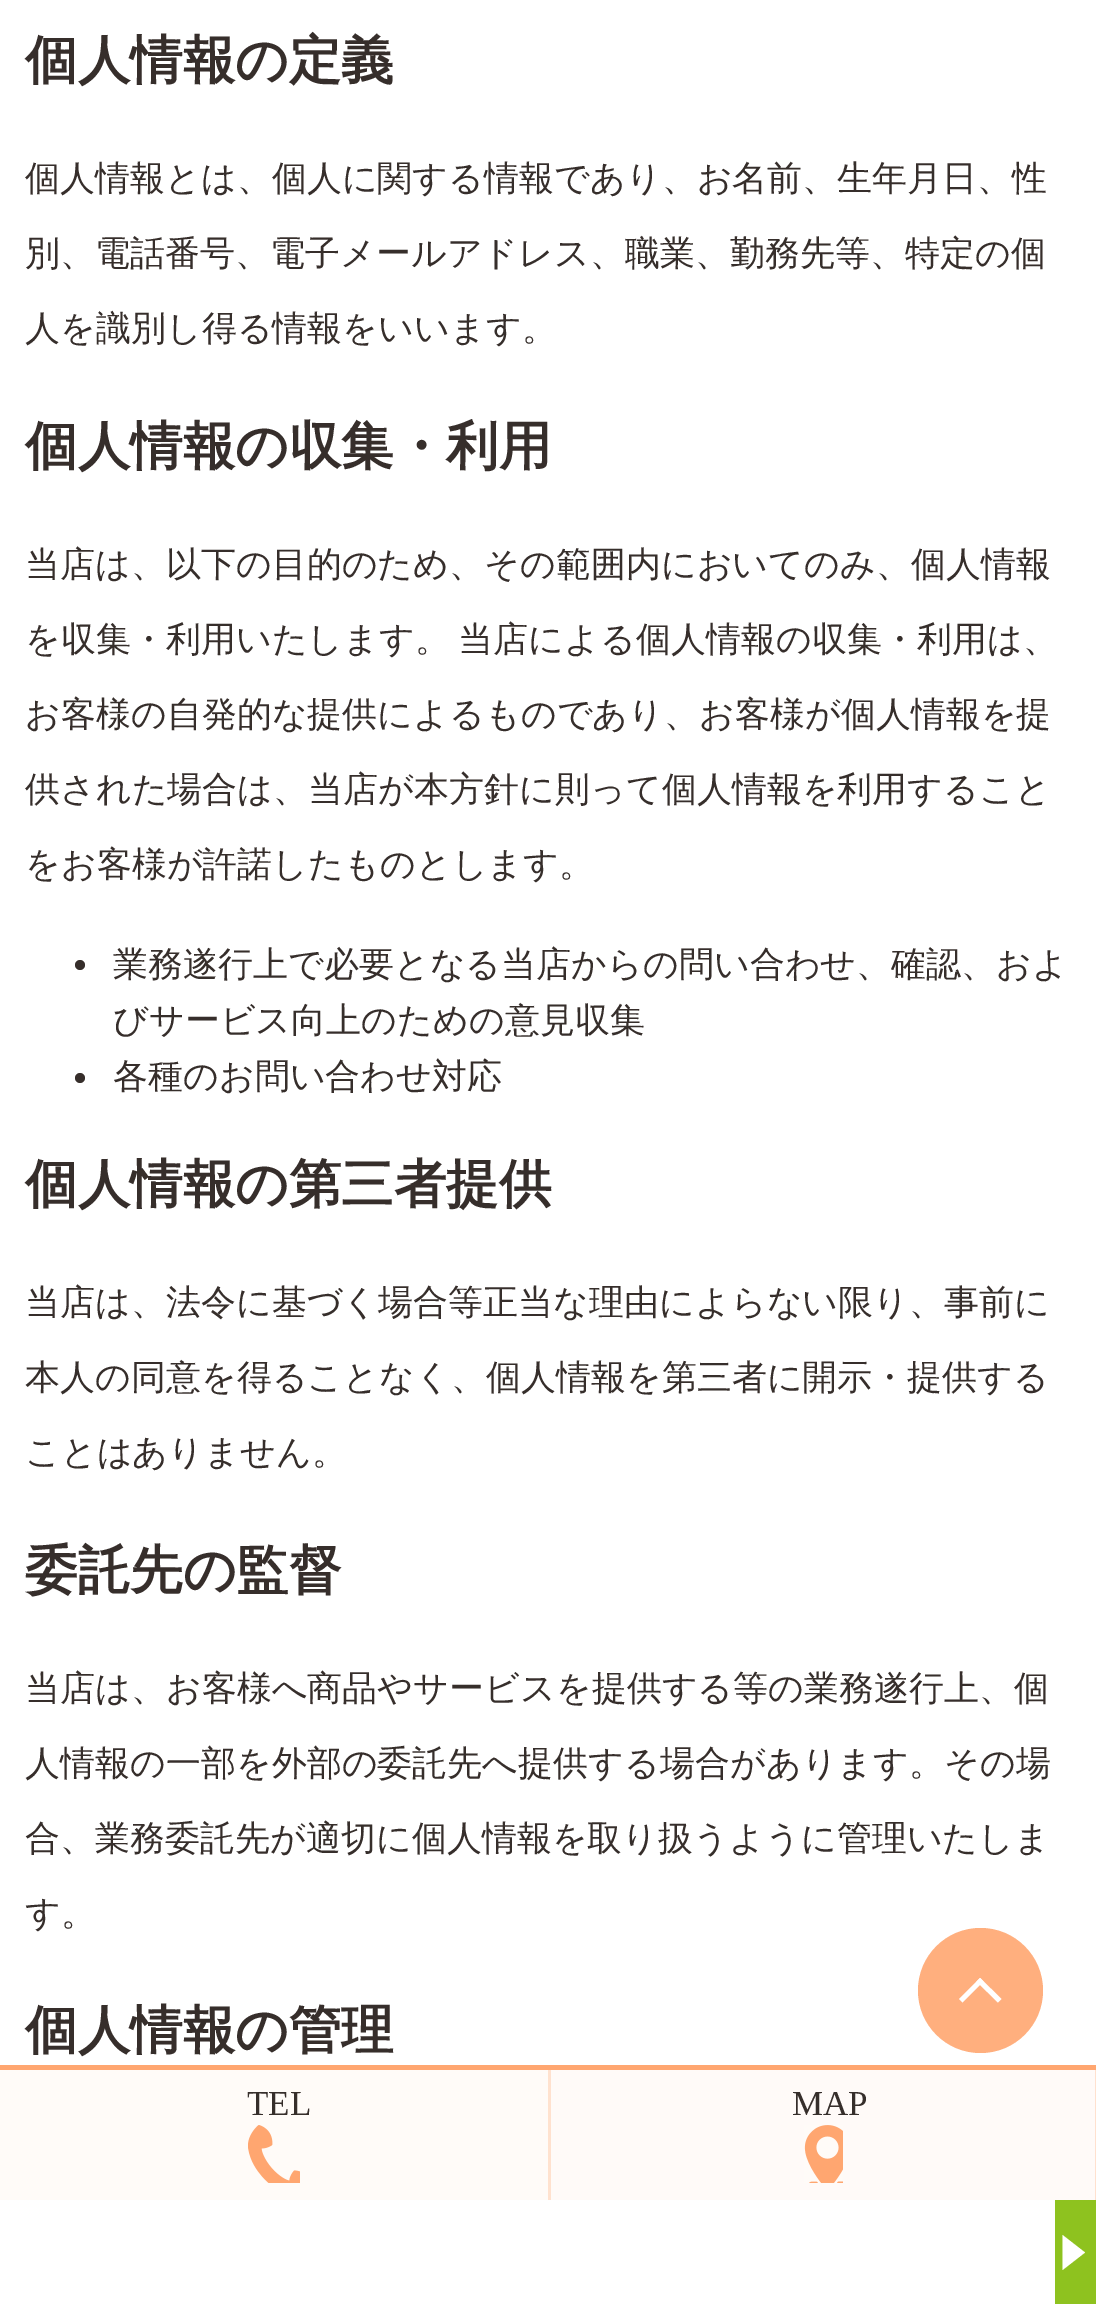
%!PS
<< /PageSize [1096 2304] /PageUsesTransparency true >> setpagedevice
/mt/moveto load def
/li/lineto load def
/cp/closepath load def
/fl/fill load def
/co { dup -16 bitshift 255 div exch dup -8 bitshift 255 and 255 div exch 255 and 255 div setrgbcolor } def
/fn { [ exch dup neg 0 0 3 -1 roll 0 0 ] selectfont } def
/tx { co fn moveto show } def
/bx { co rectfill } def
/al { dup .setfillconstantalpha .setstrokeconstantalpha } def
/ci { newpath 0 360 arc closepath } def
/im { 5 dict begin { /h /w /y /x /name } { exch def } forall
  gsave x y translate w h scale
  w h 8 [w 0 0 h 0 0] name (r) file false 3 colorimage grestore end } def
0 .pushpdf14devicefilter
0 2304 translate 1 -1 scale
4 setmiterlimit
0 0 1096 2304 16#FFFFFF bx
16#362E2B co
80 965 5 ci fl
80 1078 5 ci fl
16#FFAF7E co
980.5 1990.5 62.5 ci fl
16#FFFFFF co
980 1978 mt 1001.5 1999 li 998 2002.5 li 976.5 1981.5 li cp fl
980 1978 mt 983.5 1981.5 li 962.5 2002.5 li 959 1999 li cp fl
550 2070 1 130 16#FFE4D4 bx
0 2065 1096 5 16#FFA670 bx
0 2070 548 130 16#FFFBF8 bx
548 2070 2 130 16#FFE2CF bx
(media/1.raw) 248 2125 52 58 im
0.05 al
550 2070 545 130 16#FFA670 bx
1 al
1095 2070 1 130 16#FFE1CF bx
(media/2.raw) 804 2125 39 58 im
1055 2200 41 104 16#8EC21F bx
16#FFFFFF co
1062.5 2270 mt 1062.5 2235 li 1085 2252.5 li cp fl
(個人情報の定義) 25 78 /WenQuanYiZenHei-Bold 52.5 16#362E2B tx
(個人情報とは、個人に関する情報であり、お名前、生年月日、性) 25 190 /WenQuanYiZenHei-Medium 35 16#362E2B tx
(別、電話番号、電子メールアドレス、職業、勤務先等、特定の個) 25 265 /WenQuanYiZenHei-Medium 35 16#362E2B tx
(人を識別し得る情報をいいます。) 25 340 /WenQuanYiZenHei-Medium 35 16#362E2B tx
(個人情報の収集・利用) 25 464 /WenQuanYiZenHei-Bold 52.5 16#362E2B tx
(当店は、以下の目的のため、その範囲内においてのみ、個人情報) 25 576 /WenQuanYiZenHei-Medium 35 16#362E2B tx
25 651 mt -2 0 32 (を収集・利用いたします。 当店による個人情報の収集・利用は、) widthshow
(お客様の自発的な提供によるものであり、お客様が個人情報を提) 25 726 /WenQuanYiZenHei-Medium 35 16#362E2B tx
(供された場合は、当店が本方針に則って個人情報を利用すること) 25 801 /WenQuanYiZenHei-Medium 35 16#362E2B tx
(をお客様が許諾したものとします。) 25 876 /WenQuanYiZenHei-Medium 35 16#362E2B tx
(業務遂行上で必要となる当店からの問い合わせ、確認、およ) 113 976 /WenQuanYiZenHei-Medium 35 16#362E2B tx
(びサービス向上のための意見収集) 113 1032 /WenQuanYiZenHei-Medium 35 16#362E2B tx
(各種のお問い合わせ対応) 113 1088 /WenQuanYiZenHei-Medium 35 16#362E2B tx
(個人情報の第三者提供) 25 1202 /WenQuanYiZenHei-Bold 52.5 16#362E2B tx
(当店は、法令に基づく場合等正当な理由によらない限り、事前に) 25 1314 /WenQuanYiZenHei-Medium 35 16#362E2B tx
(本人の同意を得ることなく、個人情報を第三者に開示・提供する) 25 1389 /WenQuanYiZenHei-Medium 35 16#362E2B tx
(ことはありません。) 25 1464 /WenQuanYiZenHei-Medium 35 16#362E2B tx
(委託先の監督) 25 1588 /WenQuanYiZenHei-Bold 52.5 16#362E2B tx
(当店は、お客様へ商品やサービスを提供する等の業務遂行上、個) 25 1700 /WenQuanYiZenHei-Medium 35 16#362E2B tx
(人情報の一部を外部の委託先へ提供する場合があります。その場) 25 1775 /WenQuanYiZenHei-Medium 35 16#362E2B tx
(合、業務委託先が適切に個人情報を取り扱うように管理いたしま) 25 1850 /WenQuanYiZenHei-Medium 35 16#362E2B tx
(す。) 25 1925 /WenQuanYiZenHei-Medium 35 16#362E2B tx
(個人情報の管理) 25 2048 /WenQuanYiZenHei-Bold 52.5 16#362E2B tx
(TEL) 247 2115 /LiberationSerif-Regular 35 16#362E2B tx
(MAP) 792 2115 /LiberationSerif-Regular 35 16#362E2B tx
.poppdf14devicefilter showpage
